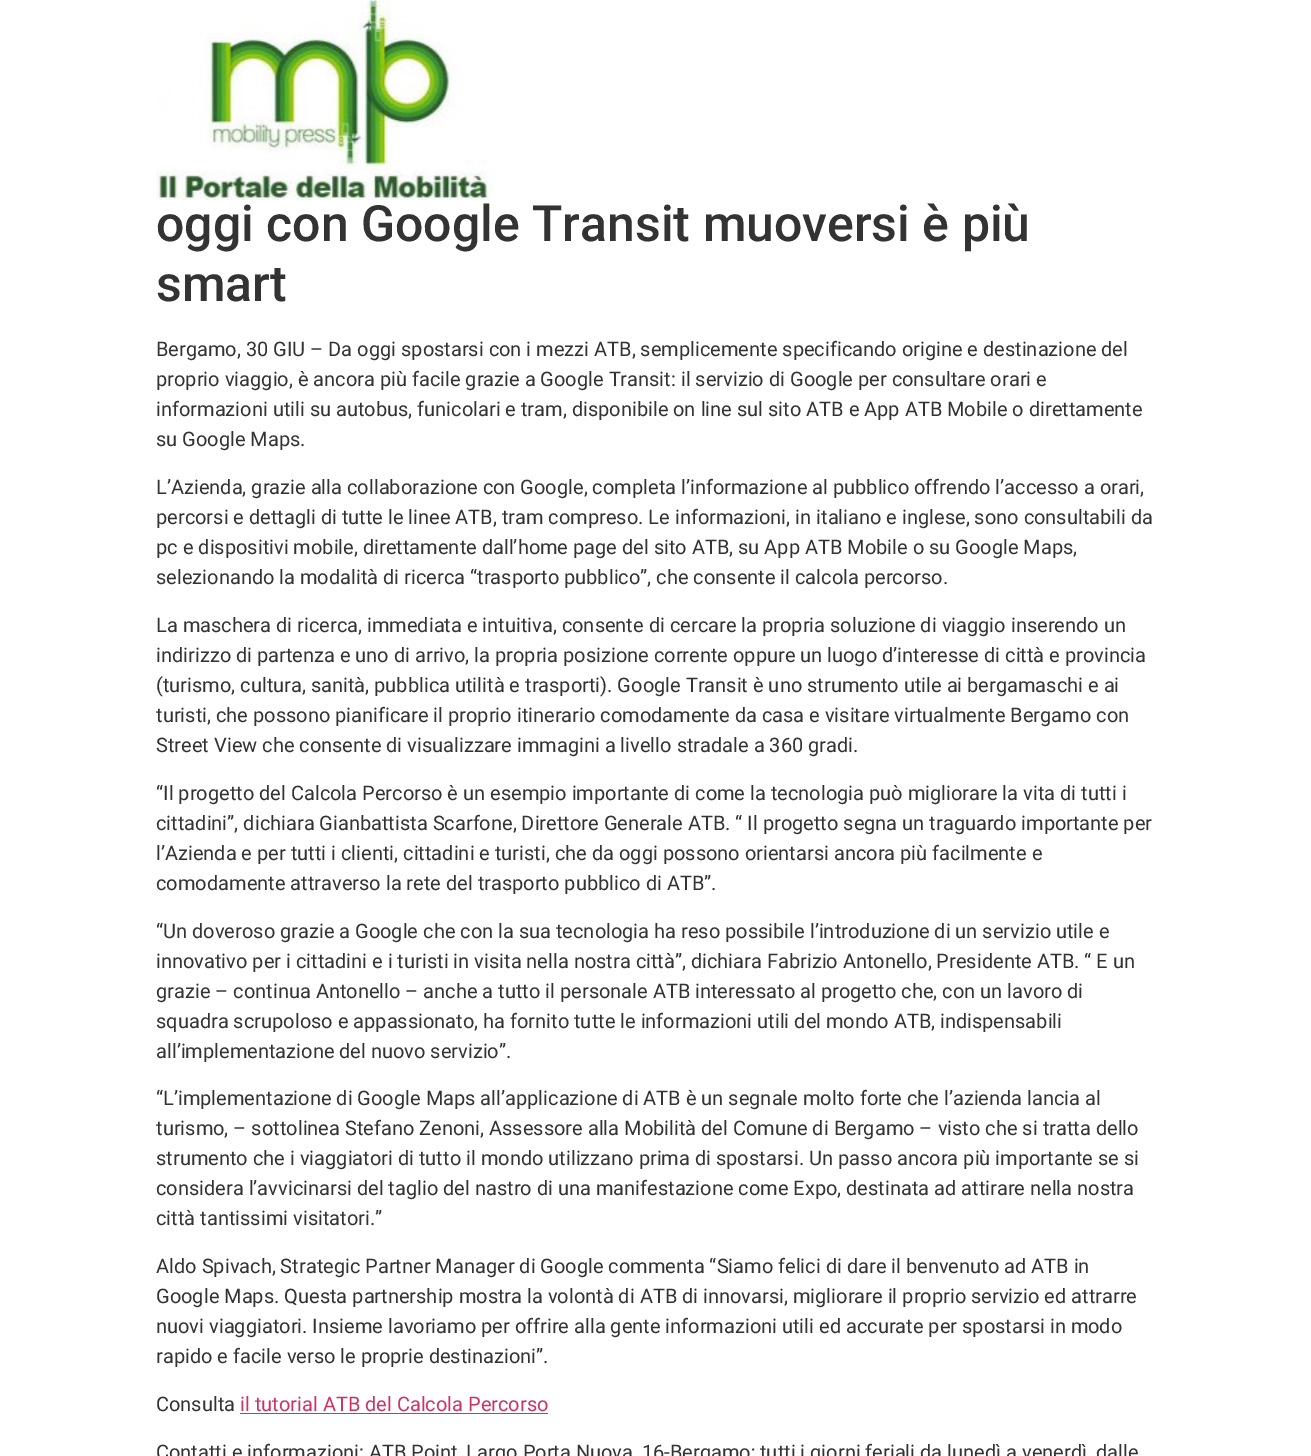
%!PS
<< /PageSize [1311 1456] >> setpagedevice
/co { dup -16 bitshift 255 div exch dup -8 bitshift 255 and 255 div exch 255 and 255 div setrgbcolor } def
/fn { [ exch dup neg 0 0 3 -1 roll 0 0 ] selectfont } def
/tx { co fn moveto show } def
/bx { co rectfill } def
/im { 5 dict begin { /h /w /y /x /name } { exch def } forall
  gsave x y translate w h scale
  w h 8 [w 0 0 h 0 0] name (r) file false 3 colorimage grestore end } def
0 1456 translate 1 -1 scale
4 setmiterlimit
0 0 1311 1456 16#FFFFFF bx
(media/1.raw) 156 0 337 200 im
240 1413 308 1 16#CC3366 bx
(oggi con Google Transit muoversi è più) 156 241 /Roboto-Medium 50 16#333333 tx
(smart) 156 301 /Roboto-Medium 50 16#333333 tx
(Bergamo, 30 GIU – Da oggi spostarsi con i mezzi ATB, semplicemente specificando origine e destinazione del) 156 356 /Roboto-Regular 20 16#333333 tx
(proprio viaggio, è ancora più facile grazie a Google Transit: il servizio di Google per consultare orari e) 156 386 /Roboto-Regular 20 16#333333 tx
(informazioni utili su autobus, funicolari e tram, disponibile on line sul sito ATB e App ATB Mobile o direttamente) 156 416 /Roboto-Regular 20 16#333333 tx
(su Google Maps.) 156 446 /Roboto-Regular 20 16#333333 tx
(L’Azienda, grazie alla collaborazione con Google, completa l’informazione al pubblico offrendo l’accesso a orari,) 156 494 /Roboto-Regular 20 16#333333 tx
(percorsi e dettagli di tutte le linee ATB, tram compreso. Le informazioni, in italiano e inglese, sono consultabili da) 156 524 /Roboto-Regular 20 16#333333 tx
(pc e dispositivi mobile, direttamente dall’home page del sito ATB, su App ATB Mobile o su Google Maps,) 156 554 /Roboto-Regular 20 16#333333 tx
(selezionando la modalità di ricerca “trasporto pubblico”, che consente il calcola percorso.) 156 584 /Roboto-Regular 20 16#333333 tx
(La maschera di ricerca, immediata e intuitiva, consente di cercare la propria soluzione di viaggio inserendo un) 156 632 /Roboto-Regular 20 16#333333 tx
(indirizzo di partenza e uno di arrivo, la propria posizione corrente oppure un luogo d’interesse di città e provincia) 156 662 /Roboto-Regular 20 16#333333 tx
(\(turismo, cultura, sanità, pubblica utilità e trasporti\). Google Transit è uno strumento utile ai bergamaschi e ai) 156 692 /Roboto-Regular 20 16#333333 tx
(turisti, che possono pianificare il proprio itinerario comodamente da casa e visitare virtualmente Bergamo con) 156 722 /Roboto-Regular 20 16#333333 tx
(Street View che consente di visualizzare immagini a livello stradale a 360 gradi.) 156 752 /Roboto-Regular 20 16#333333 tx
(“Il progetto del Calcola Percorso è un esempio importante di come la tecnologia può migliorare la vita di tutti i) 156 800 /Roboto-Regular 20 16#333333 tx
(cittadini”, dichiara Gianbattista Scarfone, Direttore Generale ATB. “ Il progetto segna un traguardo importante per) 156 830 /Roboto-Regular 20 16#333333 tx
(l’Azienda e per tutti i clienti, cittadini e turisti, che da oggi possono orientarsi ancora più facilmente e) 156 860 /Roboto-Regular 20 16#333333 tx
(comodamente attraverso la rete del trasporto pubblico di ATB”.) 156 890 /Roboto-Regular 20 16#333333 tx
(“Un doveroso grazie a Google che con la sua tecnologia ha reso possibile l’introduzione di un servizio utile e) 156 938 /Roboto-Regular 20 16#333333 tx
(innovativo per i cittadini e i turisti in visita nella nostra città”, dichiara Fabrizio Antonello, Presidente ATB. “ E un) 156 968 /Roboto-Regular 20 16#333333 tx
(grazie – continua Antonello – anche a tutto il personale ATB interessato al progetto che, con un lavoro di) 156 998 /Roboto-Regular 20 16#333333 tx
(squadra scrupoloso e appassionato, ha fornito tutte le informazioni utili del mondo ATB, indispensabili) 156 1028 /Roboto-Regular 20 16#333333 tx
(all’implementazione del nuovo servizio”.) 156 1058 /Roboto-Regular 20 16#333333 tx
(“L’implementazione di Google Maps all’applicazione di ATB è un segnale molto forte che l’azienda lancia al) 156 1105 /Roboto-Regular 20 16#333333 tx
(turismo, – sottolinea Stefano Zenoni, Assessore alla Mobilità del Comune di Bergamo – visto che si tratta dello) 156 1135 /Roboto-Regular 20 16#333333 tx
(strumento che i viaggiatori di tutto il mondo utilizzano prima di spostarsi. Un passo ancora più importante se si) 156 1165 /Roboto-Regular 20 16#333333 tx
(considera l’avvicinarsi del taglio del nastro di una manifestazione come Expo, destinata ad attirare nella nostra) 156 1195 /Roboto-Regular 20 16#333333 tx
(città tantissimi visitatori.”) 156 1225 /Roboto-Regular 20 16#333333 tx
(Aldo Spivach, Strategic Partner Manager di Google commenta “Siamo felici di dare il benvenuto ad ATB in) 156 1273 /Roboto-Regular 20 16#333333 tx
(Google Maps. Questa partnership mostra la volontà di ATB di innovarsi, migliorare il proprio servizio ed attrarre) 156 1303 /Roboto-Regular 20 16#333333 tx
(nuovi viaggiatori. Insieme lavoriamo per offrire alla gente informazioni utili ed accurate per spostarsi in modo) 156 1333 /Roboto-Regular 20 16#333333 tx
(rapido e facile verso le proprie destinazioni”.) 156 1363 /Roboto-Regular 20 16#333333 tx
(Consulta) 156 1411 /Roboto-Regular 20 16#333333 tx
(il tutorial ATB del Calcola Percorso) 240 1411 /Roboto-Regular 20 16#CC3366 tx
(Contatti e informazioni: ATB Point, Largo Porta Nuova, 16-Bergamo; tutti i giorni feriali da lunedì a venerdì, dalle) 156 1459 /Roboto-Regular 20 16#333333 tx
showpage
